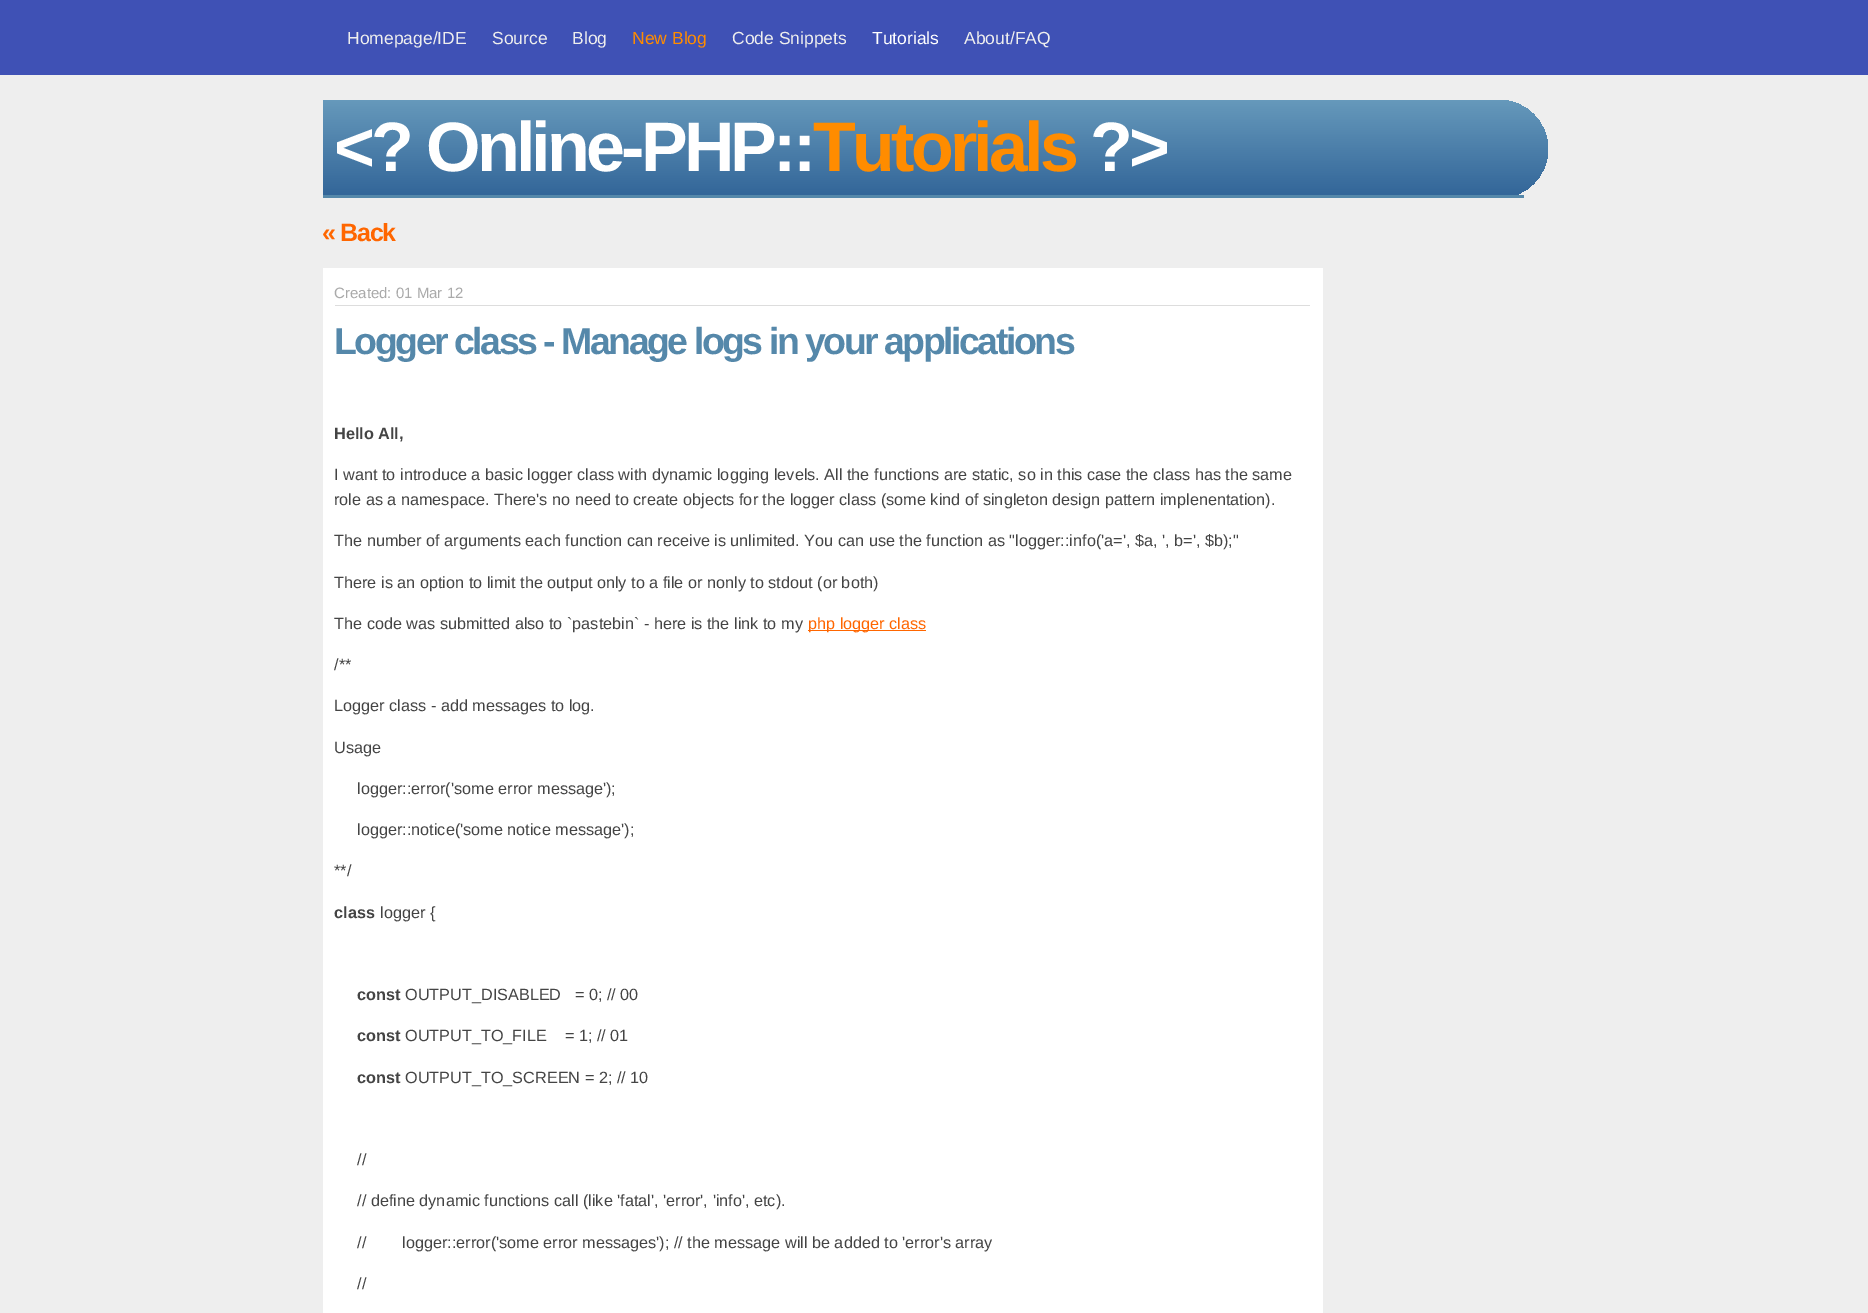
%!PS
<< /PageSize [1868 1313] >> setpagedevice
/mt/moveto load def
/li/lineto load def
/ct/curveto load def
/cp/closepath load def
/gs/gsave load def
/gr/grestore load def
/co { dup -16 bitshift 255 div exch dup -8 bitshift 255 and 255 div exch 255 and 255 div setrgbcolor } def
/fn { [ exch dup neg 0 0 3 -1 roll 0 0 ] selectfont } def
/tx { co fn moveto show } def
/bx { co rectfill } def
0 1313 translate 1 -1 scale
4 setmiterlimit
0 0 1868 1313 16#EEEEEE bx
0 0 1868 75 16#3F51B5 bx
gs
323 100 mt 1499 100 li 1526 100 1548 122 1548 149 ct 1548 176 1526 198 1499 198 ct 323 198 li cp clip newpath
gs 323 100 mt 1499 100 li 1526 100 1548 122 1548 149 ct 1548 195 li 323 195 li cp clip newpath
<< /ShadingType 2 /ColorSpace /DeviceRGB /Coords [323 195 323 100] /Extend [true true] /Function << /FunctionType 2 /Domain [0 1] /C0 [.2 .4 .6] /C1 [.4 .6 .733] /N 1 >> >> shfill gr
gr
323 195 1201 3 16#5588AA bx
323 268 1000 1045 16#FFFFFF bx
335 305 975 1 16#DDDDDD bx
808 630 118 1 16#FF6600 bx
(Homepage/IDE) 347 44 /LiberationSans-Regular 17.5 16#EEEEEE tx
(Source) 492 44 /LiberationSans-Regular 17.5 16#EEEEEE tx
(Blog) 572 44 /LiberationSans-Regular 17.5 16#EEEEEE tx
(New Blog) 632 44 /LiberationSans-Regular 17.5 16#FF8C00 tx
(Code Snippets) 732 44 /LiberationSans-Regular 17.5 16#EEEEEE tx
(Tutorials) 872 44 /LiberationSans-Regular 17.5 16#FFFFFF tx
(About/FAQ) 964 44 /LiberationSans-Regular 17.5 16#EEEEEE tx
/LiberationSans-Bold 70 fn
16#FFFFFF co
334 171 mt -3.75 0 (<? Online-PHP::) ashow
16#FF8C00 co
813 171 mt -3.75 0 (Tutorials) ashow
16#FFFFFF co
1090 171 mt -3.75 0 (?>) ashow
/LiberationSans-Bold 25 fn
16#FF6600 co
322 241 mt -1.25 0 (« Back) ashow
(Created: 01 Mar 12) 334 298 /LiberationSans-Regular 15 16#AAAAAA tx
/LiberationSans-Bold 37.5 fn
16#5588AA co
334 354 mt -2.5 0 (Logger class - Manage logs in your applications) ashow
(Hello All,) 334 439 /LiberationSans-Bold 16.25 16#444444 tx
(I want to introduce a basic logger class with dynamic logging levels. All the functions are static, so in this case the class has the same) 334 480 /LiberationSans-Regular 16.25 16#444444 tx
(role as a namespace. There's no need to create objects for the logger class \(some kind of singleton design pattern implenentation\).) 334 505 /LiberationSans-Regular 16.25 16#444444 tx
(The number of arguments each function can receive is unlimited. You can use the function as "logger::info\('a=', $a, ', b=', $b\);") 334 546 /LiberationSans-Regular 16.25 16#444444 tx
(There is an option to limit the output only to a file or nonly to stdout \(or both\)) 334 588 /LiberationSans-Regular 16.25 16#444444 tx
(The code was submitted also to `pastebin` - here is the link to my) 334 629 /LiberationSans-Regular 16.25 16#444444 tx
(php logger class) 808 629 /LiberationSans-Regular 16.25 16#FF6600 tx
(/**) 334 670 /LiberationSans-Regular 16.25 16#444444 tx
(Logger class - add messages to log.) 334 711 /LiberationSans-Regular 16.25 16#444444 tx
(Usage) 334 753 /LiberationSans-Regular 16.25 16#444444 tx
(logger::error\('some error message'\);) 357 794 /LiberationSans-Regular 16.25 16#444444 tx
(logger::notice\('some notice message'\);) 357 835 /LiberationSans-Regular 16.25 16#444444 tx
(**/) 334 876 /LiberationSans-Regular 16.25 16#444444 tx
(class) 334 918 /LiberationSans-Bold 16.25 16#444444 tx
(logger {) 380 918 /LiberationSans-Regular 16.25 16#444444 tx
(const) 357 1000 /LiberationSans-Bold 16.25 16#444444 tx
(OUTPUT_DISABLED   = 0; // 00) 405 1000 /LiberationSans-Regular 16.25 16#444444 tx
(const) 357 1041 /LiberationSans-Bold 16.25 16#444444 tx
(OUTPUT_TO_FILE    = 1; // 01) 405 1041 /LiberationSans-Regular 16.25 16#444444 tx
(const) 357 1083 /LiberationSans-Bold 16.25 16#444444 tx
(OUTPUT_TO_SCREEN = 2; // 10) 405 1083 /LiberationSans-Regular 16.25 16#444444 tx
(//) 357 1165 /LiberationSans-Regular 16.25 16#444444 tx
(// define dynamic functions call \(like 'fatal', 'error', 'info', etc\).) 357 1206 /LiberationSans-Regular 16.25 16#444444 tx
(//        logger::error\('some error messages'\); // the message will be added to 'error's array) 357 1248 /LiberationSans-Regular 16.25 16#444444 tx
(//) 357 1289 /LiberationSans-Regular 16.25 16#444444 tx
showpage
